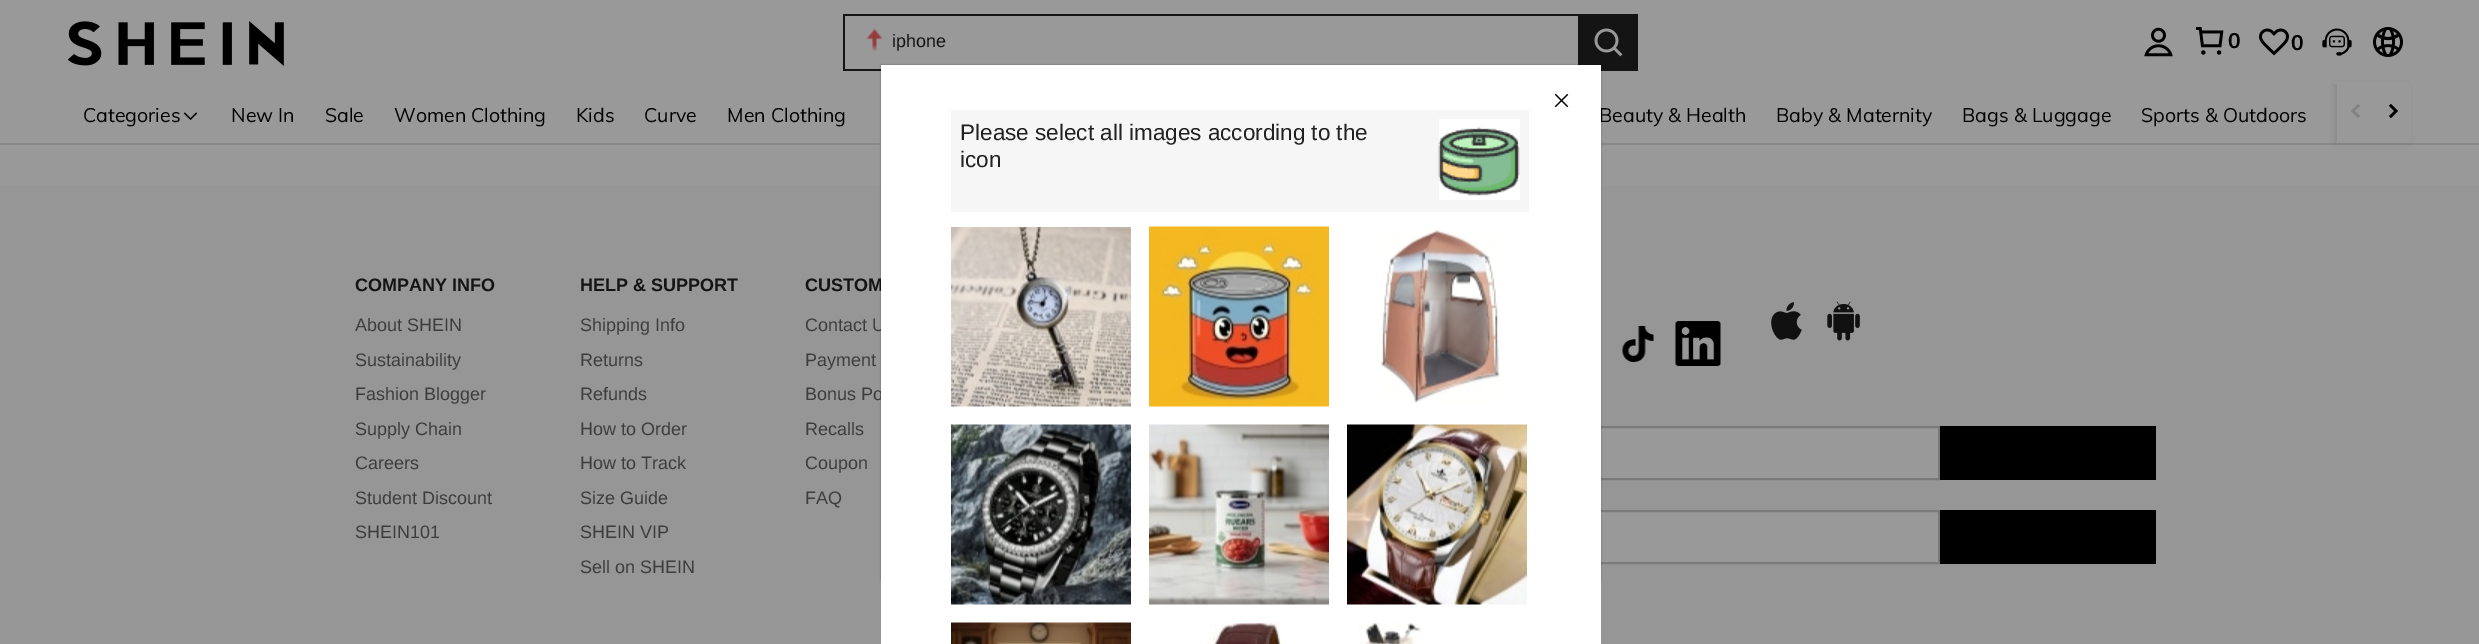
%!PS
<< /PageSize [2479 644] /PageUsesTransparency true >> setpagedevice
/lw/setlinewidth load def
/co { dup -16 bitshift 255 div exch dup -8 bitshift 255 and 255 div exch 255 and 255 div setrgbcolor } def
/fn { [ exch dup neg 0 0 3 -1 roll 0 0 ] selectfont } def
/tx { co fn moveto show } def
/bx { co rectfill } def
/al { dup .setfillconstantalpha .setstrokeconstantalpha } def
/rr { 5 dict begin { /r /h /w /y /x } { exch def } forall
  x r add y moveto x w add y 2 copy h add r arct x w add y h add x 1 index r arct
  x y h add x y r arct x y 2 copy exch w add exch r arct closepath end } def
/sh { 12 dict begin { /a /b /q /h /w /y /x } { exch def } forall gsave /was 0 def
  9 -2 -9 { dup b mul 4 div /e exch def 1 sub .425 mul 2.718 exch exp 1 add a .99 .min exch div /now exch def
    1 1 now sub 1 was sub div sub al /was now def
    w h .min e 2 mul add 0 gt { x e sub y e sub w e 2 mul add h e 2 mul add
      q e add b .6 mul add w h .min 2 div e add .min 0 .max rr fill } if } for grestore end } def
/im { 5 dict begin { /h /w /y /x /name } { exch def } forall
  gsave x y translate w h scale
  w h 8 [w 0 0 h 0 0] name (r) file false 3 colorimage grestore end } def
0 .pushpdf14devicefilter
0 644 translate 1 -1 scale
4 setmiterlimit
0 0 2479 644 16#999999 bx
0 143 2479 2 16#898989 bx
16#000000 co
2334 84 75 59 0 2 .08 sh
2334 82 75 2 16#999999 bx
(media/1.raw) 68 21 216 45 im
843 14 735 2 16#141414 bx
843 69 38 2 16#141414 bx
843 14 2 57 16#141414 bx
(media/2.raw) 866 28 17 24 im
1578 14 60 57 16#141414 bx
(media/3.raw) 1594 28 29 29 im
(media/4.raw) 2144 27 29 30 im
(media/5.raw) 2196 27 28 28 im
(media/6.raw) 2259 28 30 28 im
(media/7.raw) 2322 28 30 28 im
(media/8.raw) 2373 27 30 30 im
(media/9.raw) 183 112 15 8 im
2337 84 74 59 16#999999 bx
(media/10.raw) 2351 104 9 14 im
(media/11.raw) 2388 103 10 16 im
0 186 2479 458 16#969696 bx
(media/12.raw) 1622 326 32 36 im
(media/13.raw) 1675 321 46 45 im
(media/14.raw) 1771 302 31 38 im
(media/15.raw) 1827 301 33 40 im
1601 428 337 50 16#999999 bx
16#7A7A7A co
2 lw
1257 427 682 52 rectstroke
1940 426 216 54 16#000000 bx
1601 512 337 50 16#999999 bx
16#7A7A7A co
1377 511 562 52 rectstroke
1940 510 216 54 16#000000 bx
881 65 720 516 0 1 .3 sh
(iphone) 892 47 /LiberationSans-Regular 18 16#141414 tx
(0) 2228 48 /Muli-Bold 21 16#000000 tx
(0) 2291 50 /Muli-Bold 21 16#000000 tx
(Categories) 83 122 /Muli-Regular 19.5 16#000000 tx
(New In) 231 122 /Muli-Regular 19.5 16#000000 tx
(Sale) 325 122 /Muli-Regular 19.5 16#000000 tx
(Women Clothing) 394 122 /Muli-Regular 19.5 16#000000 tx
(Kids) 576 122 /Muli-Regular 19.5 16#000000 tx
(Curve) 644 122 /Muli-Regular 19.5 16#000000 tx
(Men Clothing) 727 122 /Muli-Regular 19.5 16#000000 tx
(Beauty & Health) 1599 122 /Muli-Regular 19.5 16#000000 tx
(Baby & Maternity) 1776 122 /Muli-Regular 19.5 16#000000 tx
(Bags & Luggage) 1962 122 /Muli-Regular 19.5 16#000000 tx
(Sports & Outdoors) 2141 122 /Muli-Regular 19.5 16#000000 tx
(COMPANY INFO) 355 291 /LiberationSans-Bold 18 16#141414 tx
(About SHEIN) 355 331 /LiberationSans-Regular 18 16#3D3D3D tx
(Sustainability) 355 366 /LiberationSans-Regular 18 16#3D3D3D tx
(Fashion Blogger) 355 400 /LiberationSans-Regular 18 16#3D3D3D tx
(Supply Chain) 355 435 /LiberationSans-Regular 18 16#3D3D3D tx
(Careers) 355 469 /LiberationSans-Regular 18 16#3D3D3D tx
(Student Discount) 355 504 /LiberationSans-Regular 18 16#3D3D3D tx
(SHEIN101) 355 538 /LiberationSans-Regular 18 16#3D3D3D tx
(HELP & SUPPORT) 580 291 /LiberationSans-Bold 18 16#141414 tx
(Shipping Info) 580 331 /LiberationSans-Regular 18 16#3D3D3D tx
(Returns) 580 366 /LiberationSans-Regular 18 16#3D3D3D tx
(Refunds) 580 400 /LiberationSans-Regular 18 16#3D3D3D tx
(How to Order) 580 435 /LiberationSans-Regular 18 16#3D3D3D tx
(How to Track) 580 469 /LiberationSans-Regular 18 16#3D3D3D tx
(Size Guide) 580 504 /LiberationSans-Regular 18 16#3D3D3D tx
(SHEIN VIP) 580 538 /LiberationSans-Regular 18 16#3D3D3D tx
(Sell on SHEIN) 580 573 /LiberationSans-Regular 18 16#3D3D3D tx
(CUSTOM) 805 291 /LiberationSans-Bold 18 16#141414 tx
(Contact U) 805 331 /LiberationSans-Regular 18 16#3D3D3D tx
(Payment) 805 366 /LiberationSans-Regular 18 16#3D3D3D tx
(Bonus Po) 805 400 /LiberationSans-Regular 18 16#3D3D3D tx
(Recalls) 805 435 /LiberationSans-Regular 18 16#3D3D3D tx
(Coupon) 805 469 /LiberationSans-Regular 18 16#3D3D3D tx
(FAQ) 805 504 /LiberationSans-Regular 18 16#3D3D3D tx
881 65 720 579 16#FFFFFF bx
(media/16.raw) 1554 93 15 15 im
951 110 578 102 16#F6F6F6 bx
(Please select all images according to the) 960 140 /LiberationSans-Regular 22.5 16#222222 tx
(icon) 960 167 /LiberationSans-Regular 22.5 16#222222 tx
1439 119 81 81 16#FFFFFF bx
(media/17.raw) 1438 127 82 69 im
(media/18.raw) 951 227 180 180 im
(media/19.raw) 1149 226 180 181 im
(media/20.raw) 1381 230 120 173 im
(media/21.raw) 951 424 180 181 im
(media/22.raw) 1149 424 180 181 im
(media/23.raw) 1347 424 180 181 im
(media/24.raw) 951 622 180 22 im
(media/25.raw) 1209 623 73 21 im
(media/26.raw) 1359 623 62 21 im
.poppdf14devicefilter showpage
